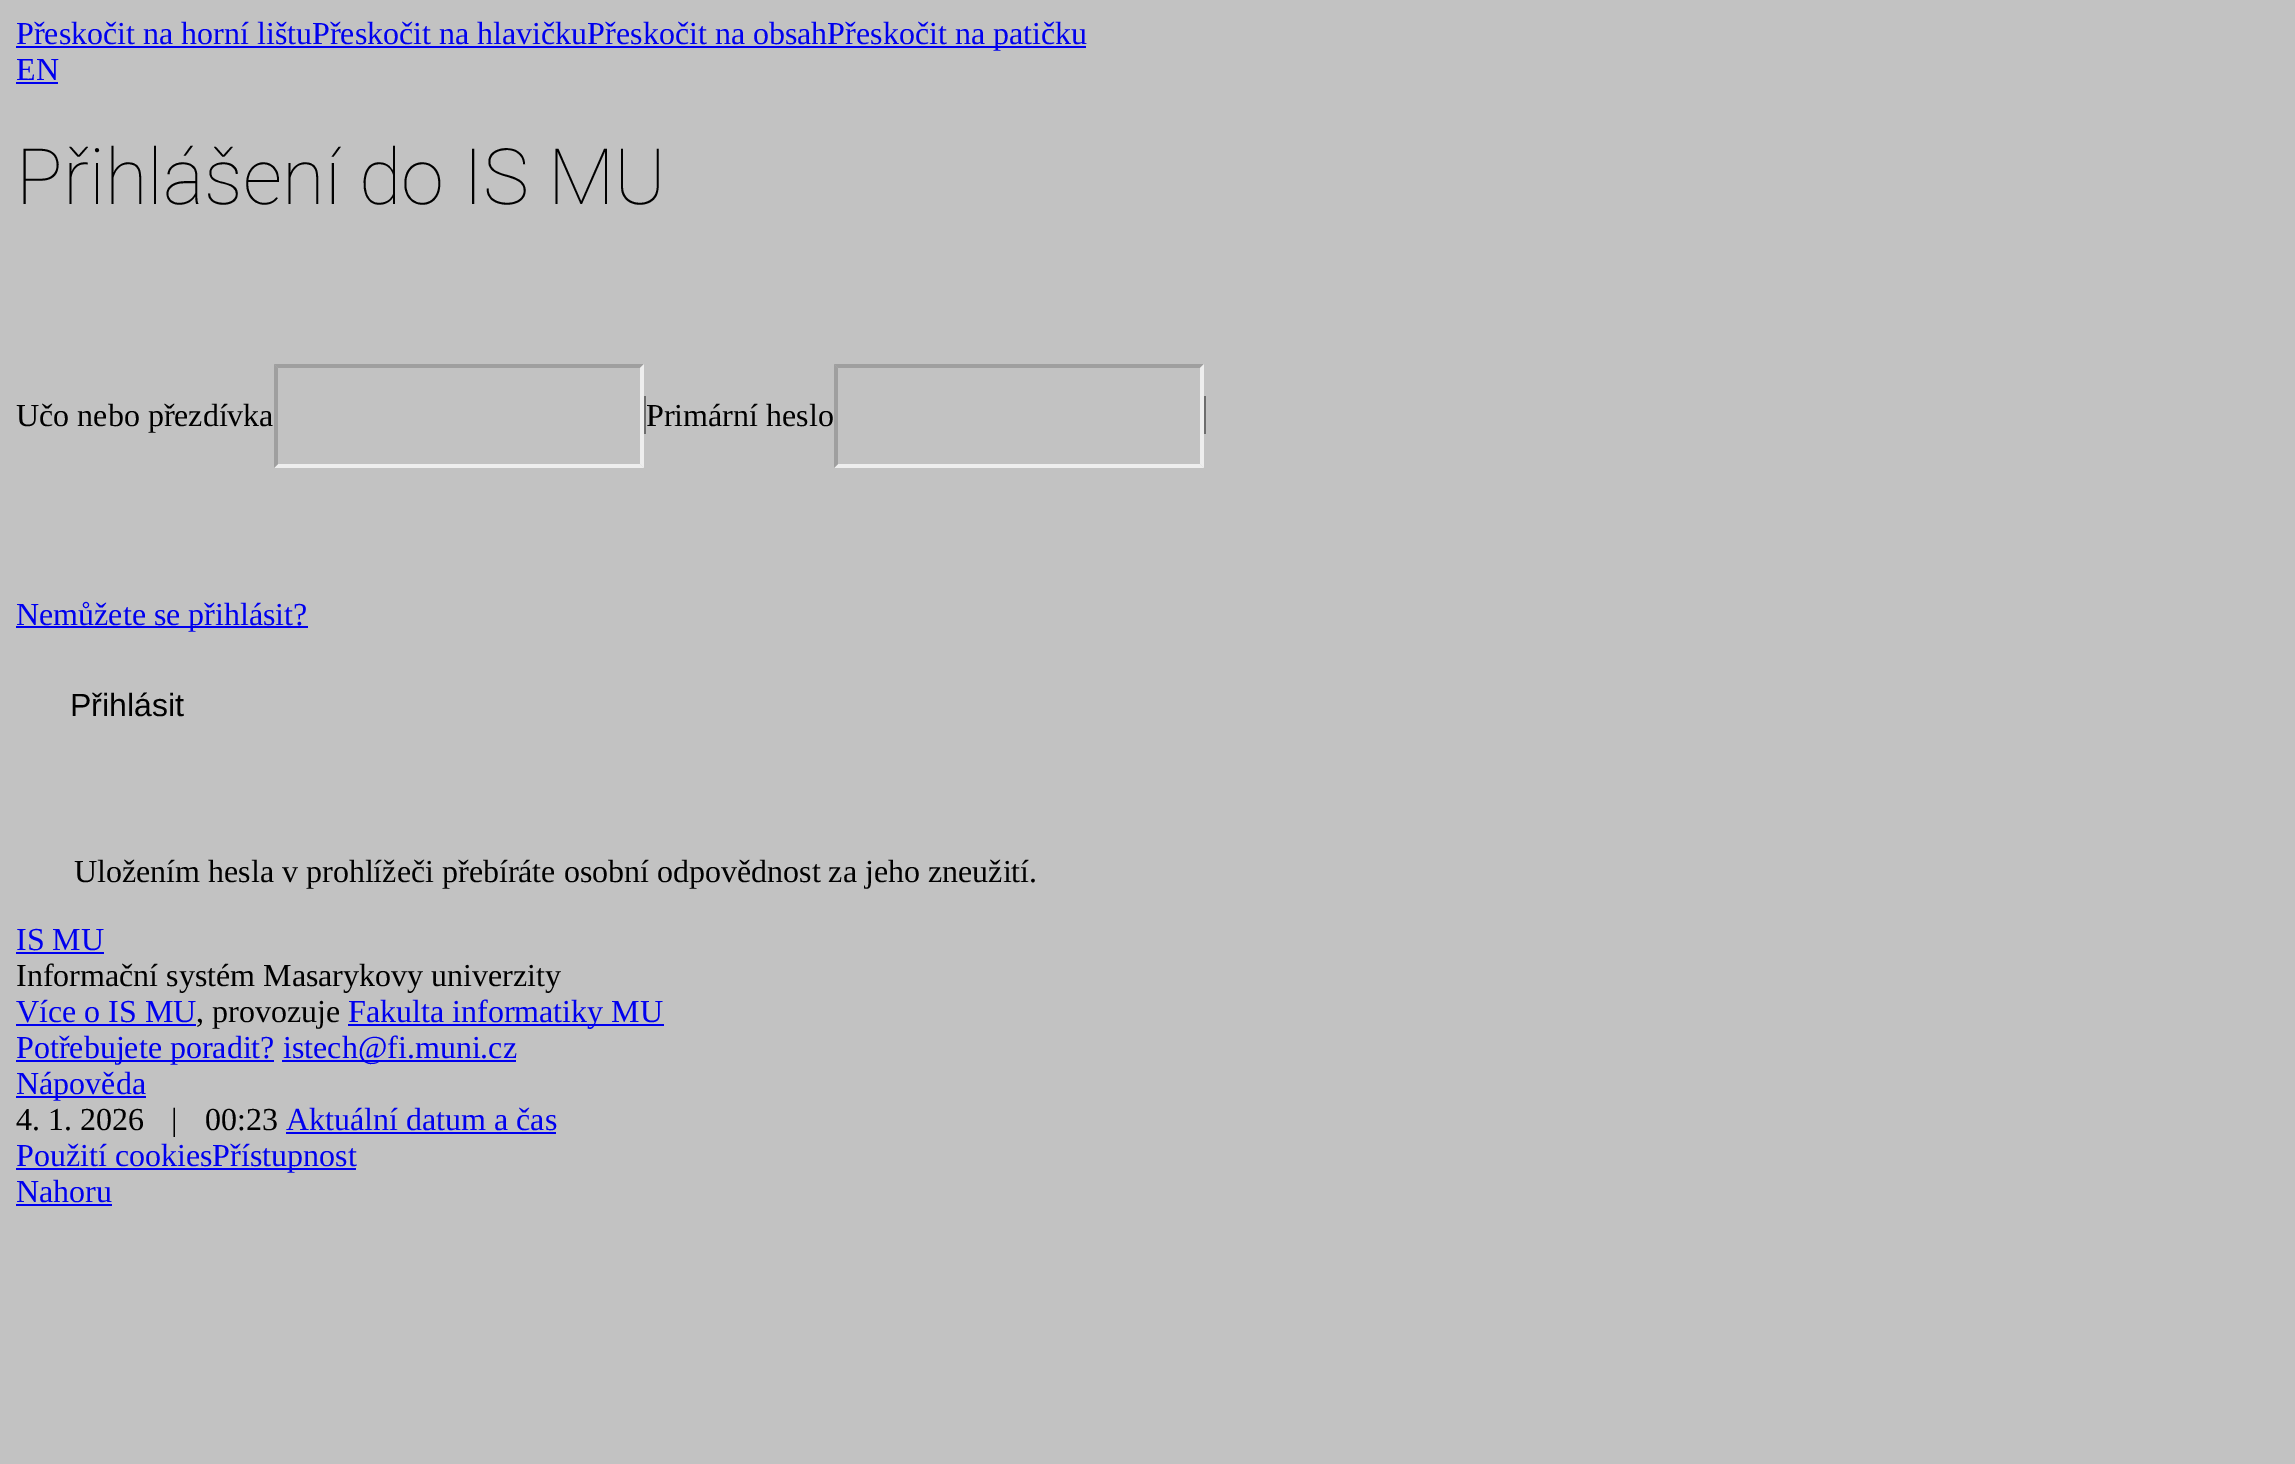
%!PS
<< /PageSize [2295 1464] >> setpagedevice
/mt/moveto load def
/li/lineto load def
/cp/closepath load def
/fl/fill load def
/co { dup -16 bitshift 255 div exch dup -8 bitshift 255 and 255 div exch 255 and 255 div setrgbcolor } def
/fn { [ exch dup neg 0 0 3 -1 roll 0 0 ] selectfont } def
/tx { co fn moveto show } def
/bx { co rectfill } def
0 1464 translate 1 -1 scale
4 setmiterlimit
0 0 2295 1464 16#C2C2C2 bx
16 46 1070 2 16#0000EE bx
16 82 42 2 16#0000EE bx
16#9F9F9F co
274 364 mt 644 364 li 640 368 li 278 368 li cp fl
16#EEEEEE co
644 364 mt 644 468 li 640 464 li 640 368 li cp fl
644 468 mt 274 468 li 278 464 li 640 464 li cp fl
16#9F9F9F co
274 468 mt 274 364 li 278 368 li 278 464 li cp fl
644 396 2 38 16#6D6D6D bx
16#9F9F9F co
834 364 mt 1204 364 li 1200 368 li 838 368 li cp fl
16#EEEEEE co
1204 364 mt 1204 468 li 1200 464 li 1200 368 li cp fl
1204 468 mt 834 468 li 838 464 li 1200 464 li cp fl
16#9F9F9F co
834 468 mt 834 364 li 838 368 li 838 464 li cp fl
1204 396 2 38 16#6D6D6D bx
16 626 292 2 16#0000EE bx
16 952 88 2 16#0000EE bx
16 1024 180 2 16#0000EE bx
348 1024 316 2 16#0000EE bx
16 1060 258 2 16#0000EE bx
282 1060 234 2 16#0000EE bx
16 1096 130 2 16#0000EE bx
286 1132 270 2 16#0000EE bx
16 1168 340 2 16#0000EE bx
16 1204 96 2 16#0000EE bx
(Přeskočit na horní lištuPřeskočit na hlavičkuPřeskočit na obsahPřeskočit na patičku) 16 44 /LiberationSerif-Regular 32 16#0000EE tx
(EN) 16 80 /LiberationSerif-Regular 32 16#0000EE tx
(Přihlášení do IS MU) 16 204 /Roboto-Thin 77.75 16#000000 tx
(Učo nebo přezdívka) 16 426 /LiberationSerif-Regular 32 16#000000 tx
(Primární heslo) 646 426 /LiberationSerif-Regular 32 16#000000 tx
(Nemůžete se přihlásit?) 16 625 /LiberationSerif-Regular 32 16#0000EE tx
(Přihlásit) 70 716 /LiberationSans-Regular 32 16#000000 tx
(Uložením hesla v prohlížeči přebíráte osobní odpovědnost za jeho zneužití.) 74 882 /LiberationSerif-Regular 32 16#000000 tx
(IS MU) 16 950 /LiberationSerif-Regular 32 16#0000EE tx
(Informační systém Masarykovy univerzity) 16 986 /LiberationSerif-Regular 32 16#000000 tx
(Více o IS MU) 16 1022 /LiberationSerif-Regular 32 16#0000EE tx
(, provozuje) 196 1022 /LiberationSerif-Regular 32 16#000000 tx
(Fakulta informatiky MU) 348 1022 /LiberationSerif-Regular 32 16#0000EE tx
(Potřebujete poradit?) 16 1058 /LiberationSerif-Regular 32 16#0000EE tx
(istech@fi.muni.cz) 283 1058 /LiberationSerif-Regular 32 16#0000EE tx
(Nápověda) 16 1094 /LiberationSerif-Regular 32 16#0000EE tx
(4. 1. 2026) 16 1130 /LiberationSerif-Regular 32 16#000000 tx
(|) 171 1130 /LiberationSerif-Regular 32 16#000000 tx
(00:23) 205 1130 /LiberationSerif-Regular 32 16#000000 tx
(Aktuální datum a čas) 286 1130 /LiberationSerif-Regular 32 16#0000EE tx
(Použití cookiesPřístupnost) 16 1166 /LiberationSerif-Regular 32 16#0000EE tx
(Nahoru) 16 1202 /LiberationSerif-Regular 32 16#0000EE tx
showpage
